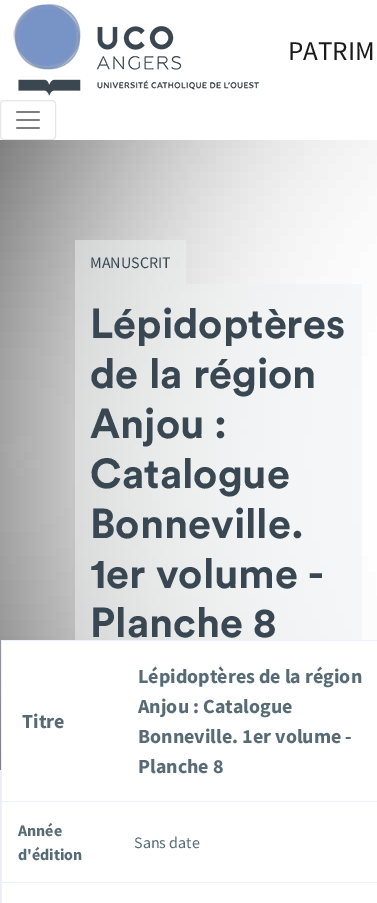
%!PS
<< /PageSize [377 903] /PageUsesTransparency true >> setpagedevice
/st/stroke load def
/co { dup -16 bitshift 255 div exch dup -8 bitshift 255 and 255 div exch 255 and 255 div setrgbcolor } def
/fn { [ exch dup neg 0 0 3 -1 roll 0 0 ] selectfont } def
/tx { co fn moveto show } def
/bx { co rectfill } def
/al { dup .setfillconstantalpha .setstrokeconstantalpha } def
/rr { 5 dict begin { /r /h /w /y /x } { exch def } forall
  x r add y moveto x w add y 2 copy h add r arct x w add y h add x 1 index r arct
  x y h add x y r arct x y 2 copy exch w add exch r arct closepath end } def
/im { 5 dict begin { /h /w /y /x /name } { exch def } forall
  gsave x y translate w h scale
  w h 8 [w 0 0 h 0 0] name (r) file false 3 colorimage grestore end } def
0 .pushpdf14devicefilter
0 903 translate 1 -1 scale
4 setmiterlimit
0 0 377 903 16#FFFFFF bx
(media/1.raw) 13 4 246 92 im
16#E6E6E6 co
.5 100.5 55 39 3.5 rr st
(media/2.raw) 16 111 24 18 im
(media/3.raw) 0 140 377 630 im
0.5 al
75 240 111 44 16#EEF1F2 bx
75 284 287 356 16#EEF1F2 bx
1 al
0 770 1 133 16#EEEEEE bx
2 641 375 129 16#FFFFFF bx
1 640 1 263 16#EEEFFF bx
1 640 376 1 16#EEEFFF bx
1 801 376 1 16#EEEFFF bx
1 882 376 1 16#EEEFFF bx
(PATRIM) 288 60 /SourceSansPro-Regular 27 16#1A1A1A tx
(MANUSCRIT) 90 268 /SourceSansPro-Regular 16 16#384751 tx
(Lépidoptères) 90 338 /Circular-Bold 41.5 16#384751 tx
(de la région) 90 388 /Circular-Bold 41.5 16#384751 tx
(Anjou :) 90 438 /Circular-Bold 41.5 16#384751 tx
(Catalogue) 90 488 /Circular-Bold 41.5 16#384751 tx
(Bonneville.) 90 538 /Circular-Bold 41.5 16#384751 tx
(1er volume -) 90 588 /Circular-Bold 41.5 16#384751 tx
(Planche 8) 90 637 /Circular-Bold 41.5 16#384751 tx
(Titre) 22 728 /SourceSansPro-Bold 20 16#576B76 tx
(Lépidoptères de la région) 138 683 /SourceSansPro-Bold 20 16#576B76 tx
(Anjou : Catalogue) 138 713 /SourceSansPro-Bold 20 16#576B76 tx
(Bonneville. 1er volume -) 138 743 /SourceSansPro-Bold 20 16#576B76 tx
(Planche 8) 138 773 /SourceSansPro-Bold 20 16#576B76 tx
(Année) 18 836 /SourceSansPro-Bold 16 16#576B76 tx
(d'édition) 18 860 /SourceSansPro-Bold 16 16#576B76 tx
(Sans date) 134 848 /SourceSansPro-Regular 16 16#576B76 tx
.poppdf14devicefilter showpage
